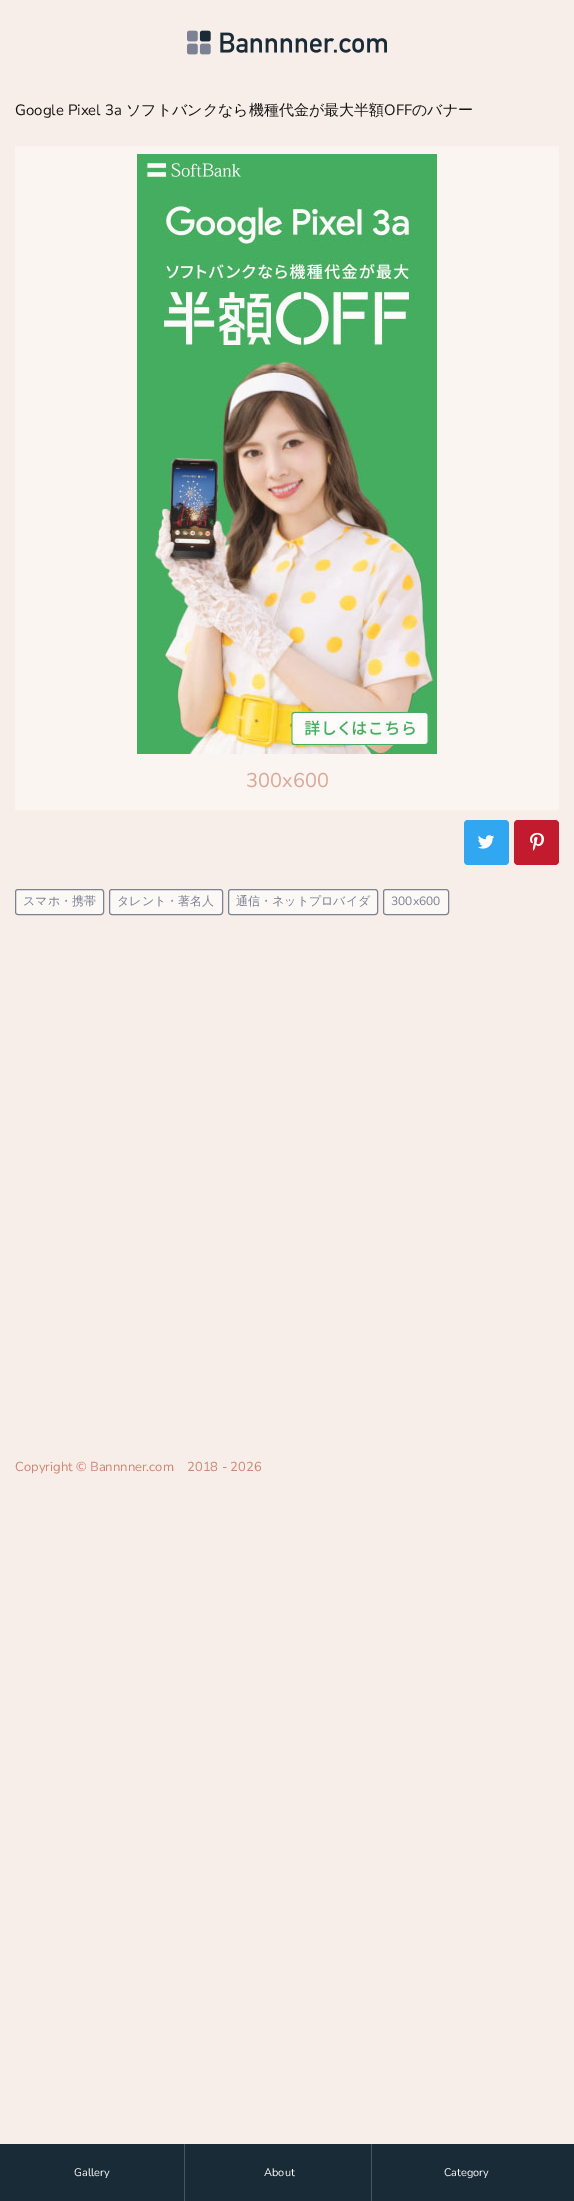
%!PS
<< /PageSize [574 2201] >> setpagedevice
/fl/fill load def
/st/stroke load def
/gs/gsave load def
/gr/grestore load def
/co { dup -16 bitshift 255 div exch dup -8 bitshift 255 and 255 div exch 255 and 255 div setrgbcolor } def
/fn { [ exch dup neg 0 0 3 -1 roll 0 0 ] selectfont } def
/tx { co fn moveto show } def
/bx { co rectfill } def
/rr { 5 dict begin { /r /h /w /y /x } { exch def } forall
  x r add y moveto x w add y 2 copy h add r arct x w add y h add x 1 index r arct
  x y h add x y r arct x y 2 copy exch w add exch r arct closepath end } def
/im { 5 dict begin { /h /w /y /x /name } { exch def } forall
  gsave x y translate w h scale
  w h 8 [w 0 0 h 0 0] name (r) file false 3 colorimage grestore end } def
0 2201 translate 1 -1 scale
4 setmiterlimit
0 0 574 2201 16#F8EEE9 bx
15 146 544 664 16#FBF5F2 bx
(media/1.raw) 137 154 300 600 im
16#30A7F0 co
464 820 45 45 4 rr fl
(media/2.raw) 478 835 17 14 im
16#C21B2D co
514 820 45 45 4 rr fl
(media/3.raw) 530 832 14 19 im
16#FCF8F6 co
15.5 889.5 88 25 2.5 rr gs fl gr
16#7C8293 co
st
16#FCF8F6 co
109.5 889.5 113 25 2.5 rr gs fl gr
16#7C8293 co
st
16#FCF8F6 co
228.5 889.5 149 25 2.5 rr gs fl gr
16#7C8293 co
st
16#FCF8F6 co
383.5 889.5 65 25 2.5 rr gs fl gr
16#7C8293 co
st
(media/4.raw) 187 30 200 25 im
0 2144 574 57 16#192B37 bx
184 2144 1 57 16#46555E bx
371 2144 1 57 16#46555E bx
(Google Pixel 3a) 15 115 /NunitoSans-ExtraLight 15 16#161413 tx
(ソフトバンクなら機種代金が最大半額) 126 115 /WenQuanYiZenHei-Medium 15 16#161413 tx
(OFF) 384 115 /NunitoSans-ExtraLight 15 16#161413 tx
(のバナー) 412 115 /WenQuanYiZenHei-Medium 15 16#161413 tx
(300x600) 246 787 /NunitoSans-ExtraLight 20 16#DAA799 tx
(スマホ・携帯) 23 905 /WenQuanYiZenHei-Medium 12 16#7C8293 tx
(タレント・著名人) 117 905 /WenQuanYiZenHei-Medium 12 16#7C8293 tx
(通信・ネットプロバイダ) 236 905 /WenQuanYiZenHei-Medium 12 16#7C8293 tx
(300x600) 391 905 /NunitoSans-ExtraLight 12 16#7C8293 tx
(Copyright © Bannnner.com) 15 1471 /NunitoSans-ExtraLight 13 16#CD8773 tx
(2018 - 2026) 187 1471 /NunitoSans-ExtraLight 13 16#CD8773 tx
(Gallery) 74 2176 /NunitoSans-ExtraLight 11 16#FEFCFB tx
(About) 264 2176 /NunitoSans-ExtraLight 11 16#FEFCFB tx
(Category) 444 2176 /NunitoSans-ExtraLight 11 16#FEFCFB tx
showpage
